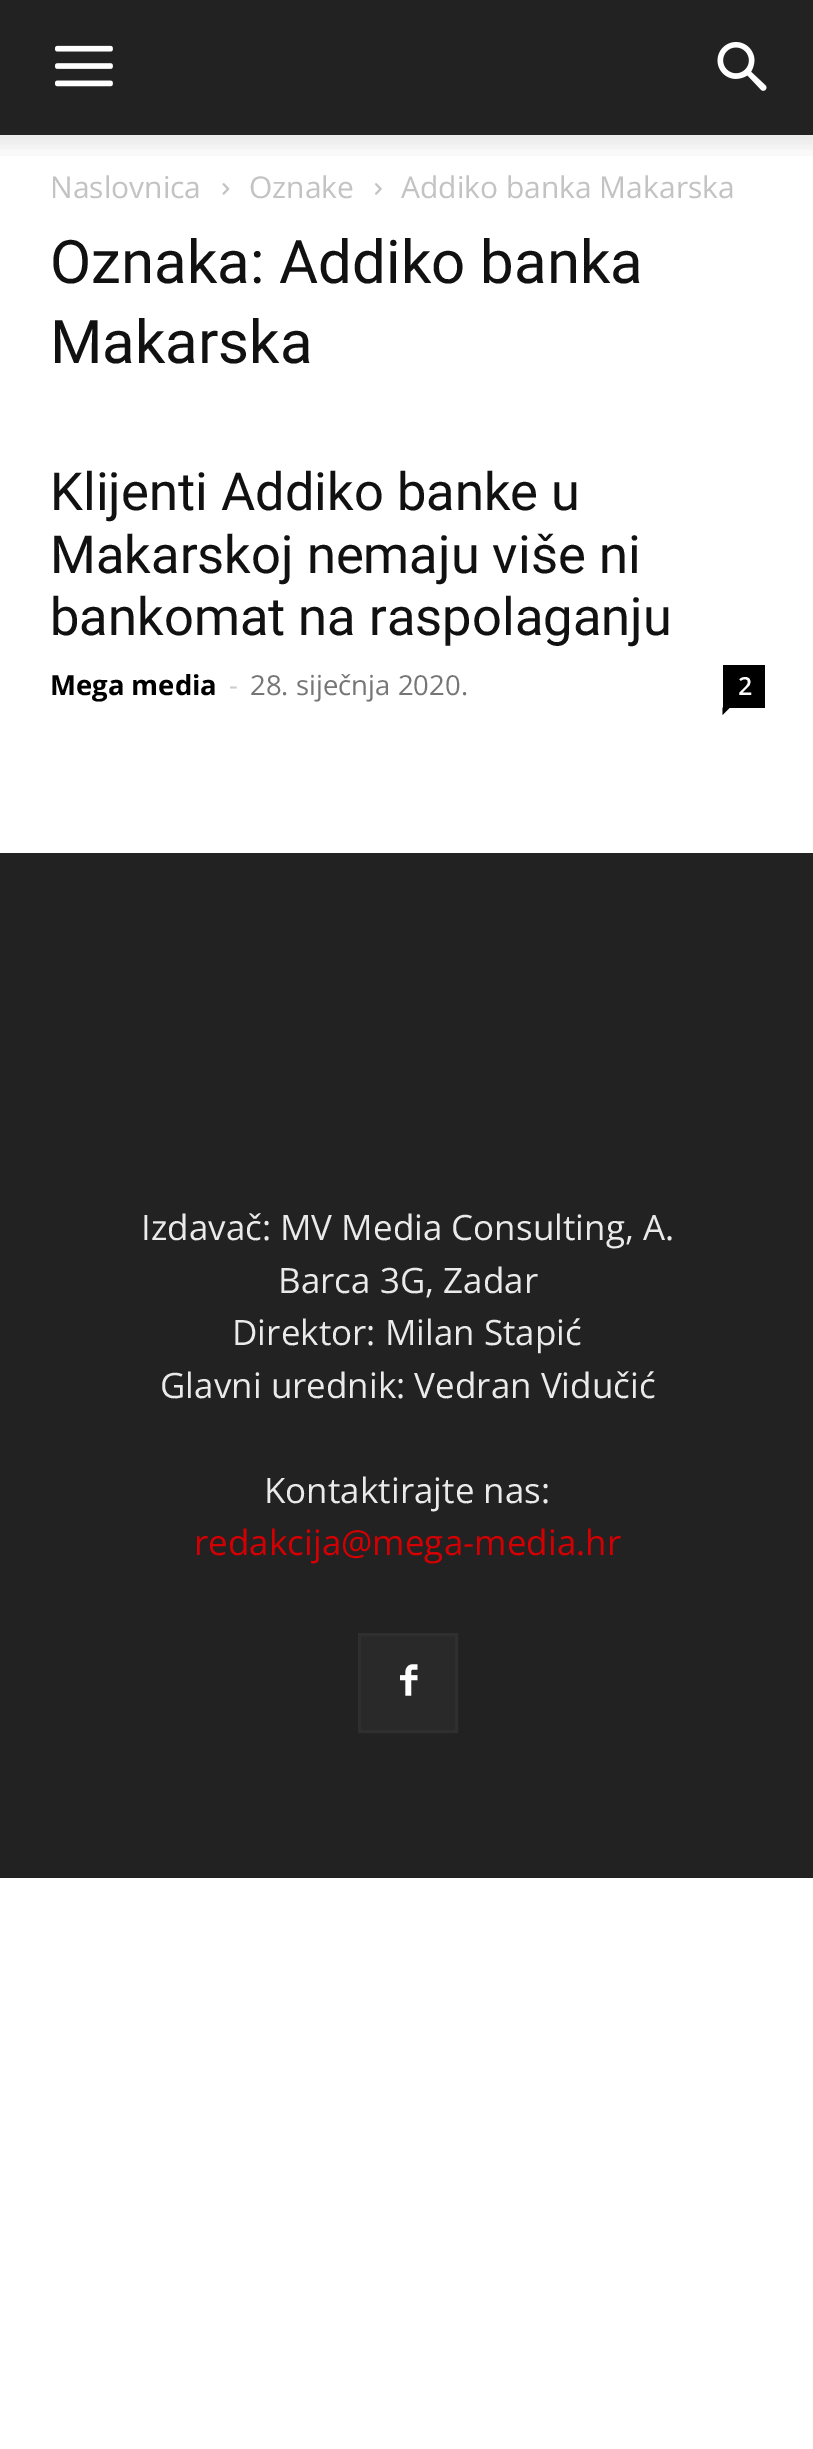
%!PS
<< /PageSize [813 2449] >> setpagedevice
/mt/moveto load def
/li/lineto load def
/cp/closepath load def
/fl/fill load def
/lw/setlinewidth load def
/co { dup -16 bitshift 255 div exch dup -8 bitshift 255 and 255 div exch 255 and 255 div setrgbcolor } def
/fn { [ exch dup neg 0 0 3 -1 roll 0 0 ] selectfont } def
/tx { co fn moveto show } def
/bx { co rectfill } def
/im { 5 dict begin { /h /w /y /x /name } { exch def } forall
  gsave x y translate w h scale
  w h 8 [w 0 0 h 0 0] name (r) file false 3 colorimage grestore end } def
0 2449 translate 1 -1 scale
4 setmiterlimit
0 0 813 2449 16#FFFFFF bx
0 0 813 135 16#222222 bx
(media/1.raw) 55 45 58 42 im
(media/2.raw) 717 42 50 49 im
(media/3.raw) 0 135 813 21 im
(media/4.raw) 222 183 8 12 im
(media/5.raw) 375 183 7 12 im
723 665 42 43 16#000000 bx
722.5 707.5 mt 730 707.5 li 722.5 715 li cp fl
0 853 813 1025 16#222222 bx
361 1636 94 94 16#292929 bx
(media/6.raw) 400 1664 18 32 im
16#2F2F2F co
3 lw
359.5 1634.5 97 97 rectstroke
(Naslovnica) 50 198 /OpenSans-Regular 30 16#C3C3C3 tx
(Oznake) 249 198 /OpenSans-Regular 30 16#C3C3C3 tx
(Addiko banka Makarska) 401 198 /OpenSans-Regular 30 16#C3C3C3 tx
(Oznaka: Addiko banka) 50 283 /Roboto-Regular 60 16#111111 tx
(Makarska) 50 363 /Roboto-Regular 60 16#111111 tx
(Klijenti Addiko banke u) 50 510 /Roboto-Regular 52.5 16#111111 tx
(Makarskoj nemaju više ni) 50 573 /Roboto-Regular 52.5 16#111111 tx
(bankomat na raspolaganju) 50 635 /Roboto-Regular 52.5 16#111111 tx
(Mega media) 50 695 /OpenSans-Bold 27.5 16#000000 tx
(-) 229 695 /OpenSans-Regular 27.5 16#CCCCCC tx
(28. siječnja 2020.) 250 695 /OpenSans-Regular 27.5 16#767676 tx
(2) 738 695 /OpenSans-SemiBold 25 16#FFFFFF tx
(Izdavač: MV Media Consulting, A.) 141 1240 /OpenSans-Regular 35 16#EAEAEA tx
(Barca 3G, Zadar) 278 1293 /OpenSans-Regular 35 16#EAEAEA tx
(Direktor: Milan Stapić) 232 1345 /OpenSans-Regular 35 16#EAEAEA tx
(Glavni urednik: Vedran Vidučić) 160 1398 /OpenSans-Regular 35 16#EAEAEA tx
(Kontaktirajte nas:) 264 1503 /OpenSans-Regular 35 16#EAEAEA tx
(redakcija@mega-media.hr) 194 1555 /OpenSans-Regular 35 16#D30003 tx
showpage
